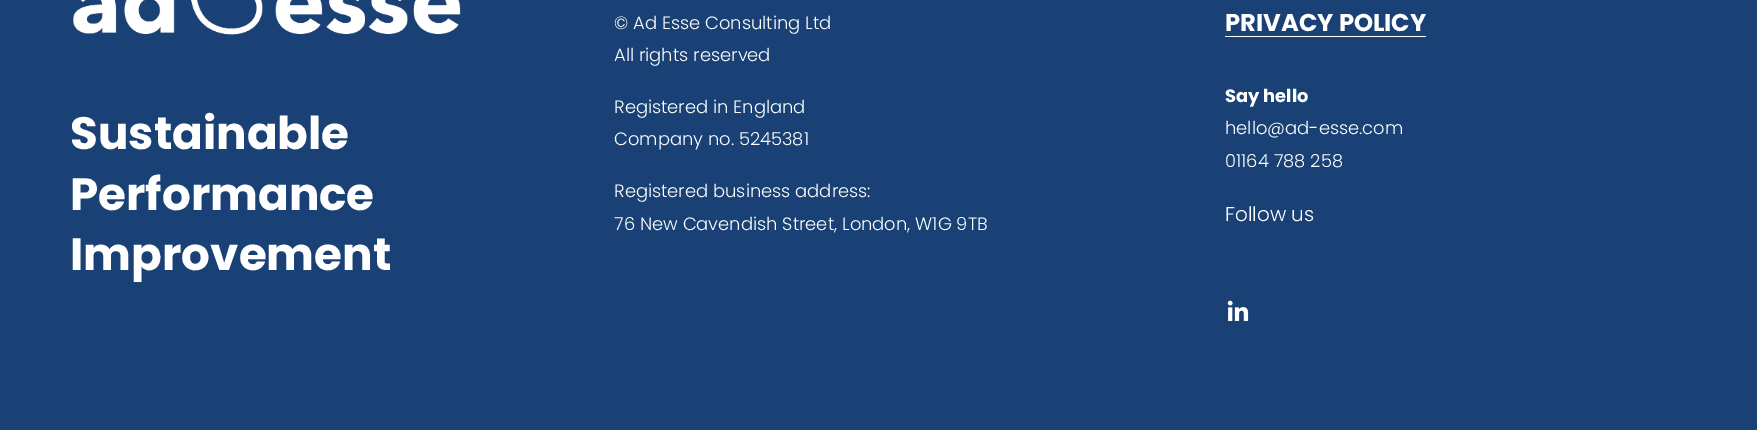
%!PS
<< /PageSize [1757 430] >> setpagedevice
/co { dup -16 bitshift 255 div exch dup -8 bitshift 255 and 255 div exch 255 and 255 div setrgbcolor } def
/fn { [ exch dup neg 0 0 3 -1 roll 0 0 ] selectfont } def
/tx { co fn moveto show } def
/bx { co rectfill } def
/im { 5 dict begin { /h /w /y /x /name } { exch def } forall
  gsave x y translate w h scale
  w h 8 [w 0 0 h 0 0] name (r) file false 3 colorimage grestore end } def
0 430 translate 1 -1 scale
4 setmiterlimit
0 0 1757 430 16#1A4175 bx
(media/1.raw) 73 0 388 35 im
1225 36 201 1 16#FFFFFF bx
(media/2.raw) 1227 300 22 21 im
(© Ad Esse Consulting Ltd) 614 29 /Poppins-Light 17.9 16#FFFFFF tx
(All rights reserved) 614 61 /Poppins-Light 17.9 16#FFFFFF tx
(Registered in England) 614 113 /Poppins-Light 17.9 16#FFFFFF tx
(Company no. 5245381) 614 145 /Poppins-Light 17.9 16#FFFFFF tx
(Registered business address:) 614 197 /Poppins-Light 17.9 16#FFFFFF tx
(76 New Cavendish Street, London, W1G 9TB) 614 230 /Poppins-Light 17.9 16#FFFFFF tx
(PRIVACY POLICY) 1225 31 /Poppins-Bold 24.25 16#FFFFFF tx
(Say hello) 1225 102 /Poppins-Bold 17.9 16#FFFFFF tx
(hello@ad-esse.com) 1225 134 /Poppins-Light 17.9 16#FFFFFF tx
(01164 788 258) 1225 167 /Poppins-Light 17.9 16#FFFFFF tx
(Follow us) 1225 221 /Poppins-Light 20 16#FFFFFF tx
(Sustainable) 70 149 /Poppins-Bold 45.25 16#FFFFFF tx
(Performance) 70 210 /Poppins-Bold 45.25 16#FFFFFF tx
(Improvement) 70 270 /Poppins-Bold 45.25 16#FFFFFF tx
showpage
